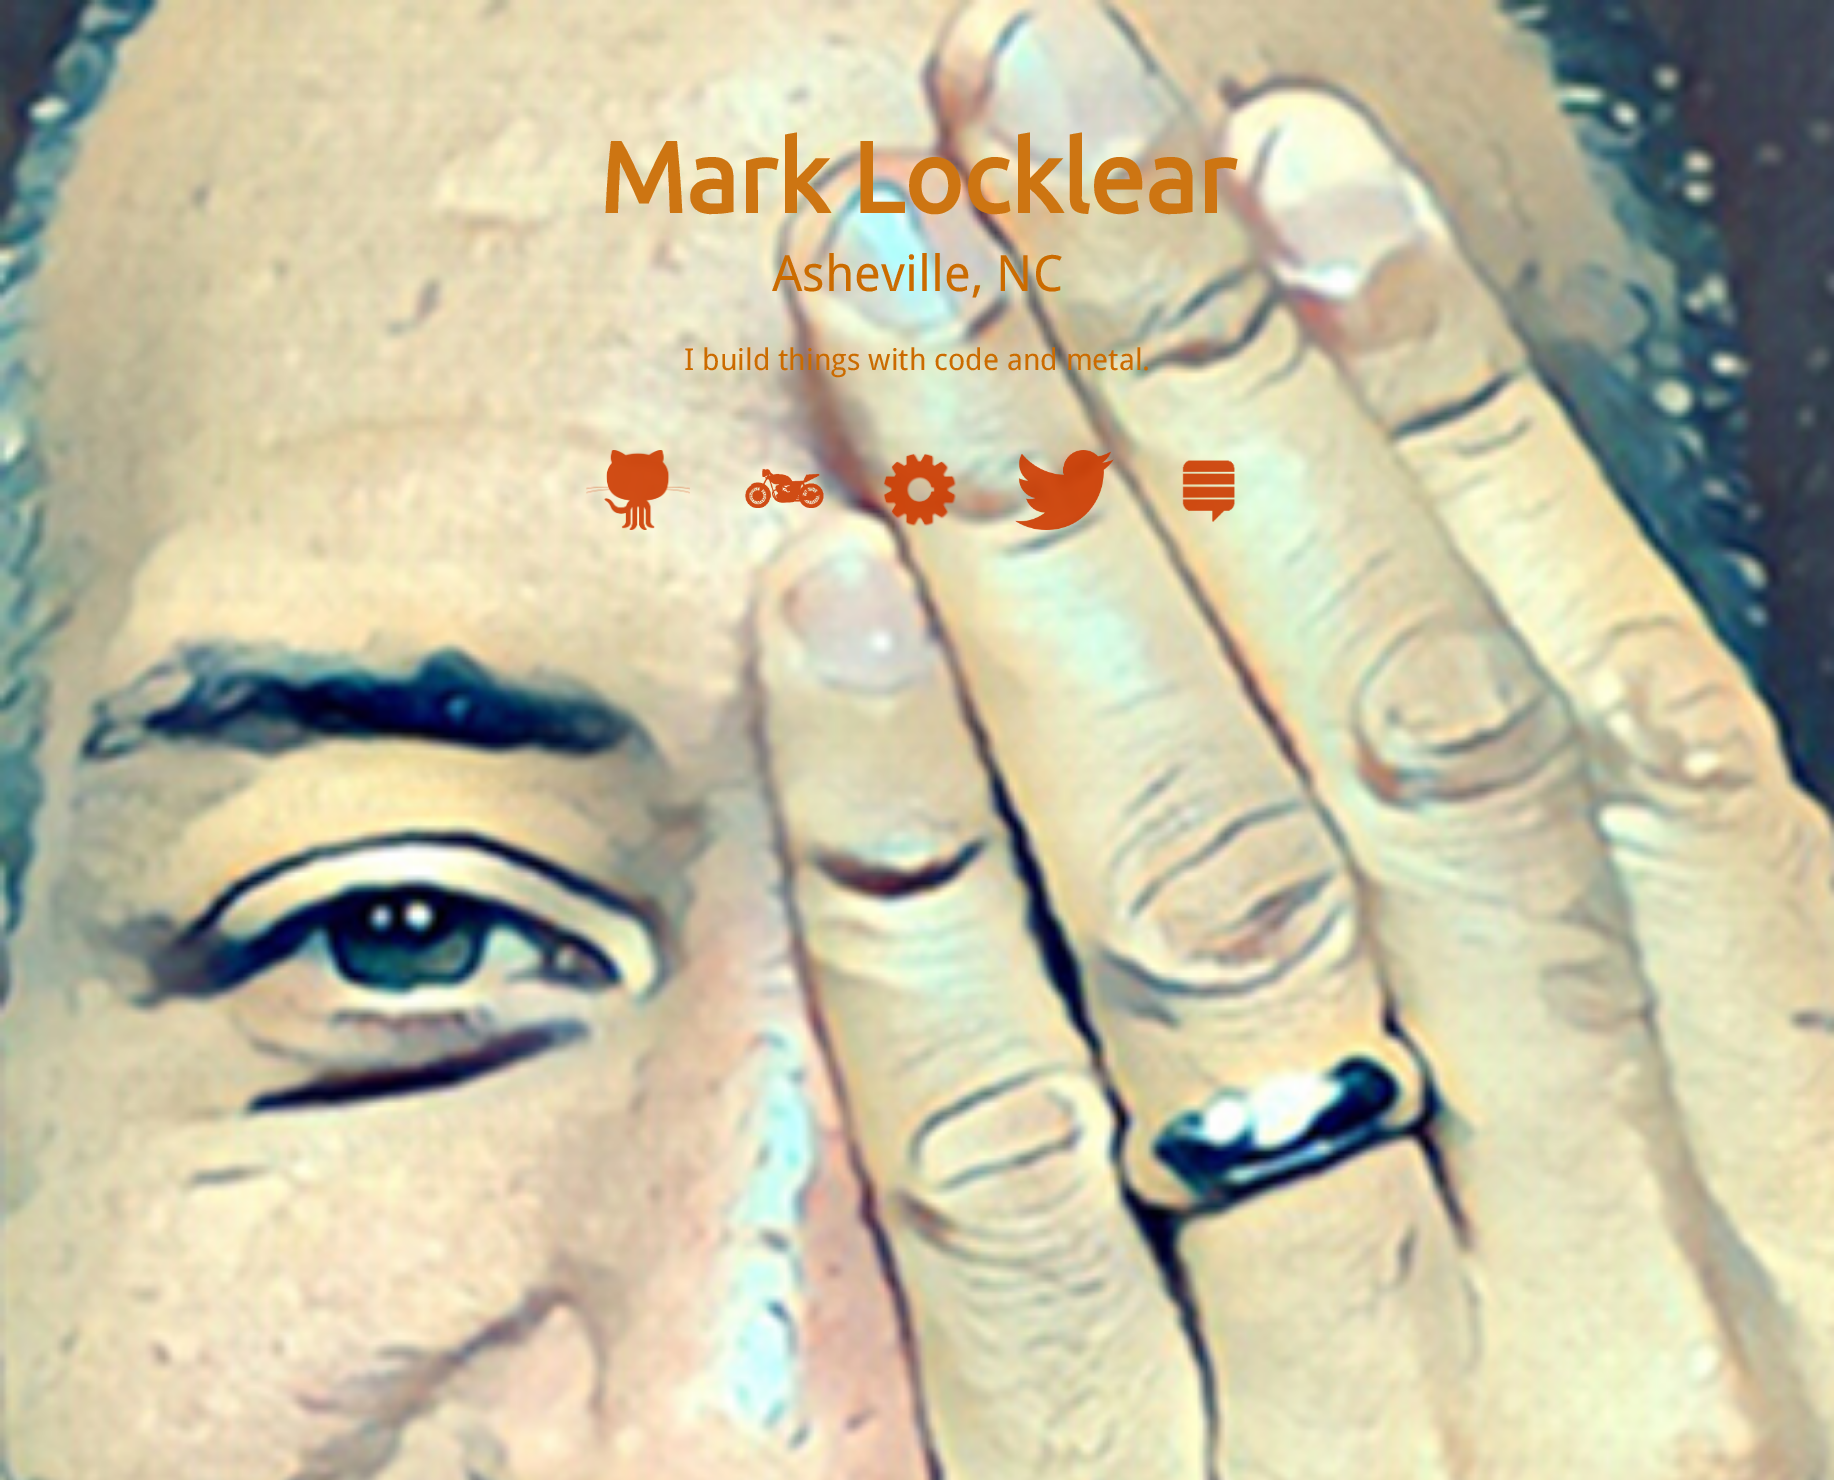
%!PS
<< /PageSize [1834 1480] >> setpagedevice
/co { dup -16 bitshift 255 div exch dup -8 bitshift 255 and 255 div exch 255 and 255 div setrgbcolor } def
/fn { [ exch dup neg 0 0 3 -1 roll 0 0 ] selectfont } def
/tx { co fn moveto show } def
/bx { co rectfill } def
/im { 5 dict begin { /h /w /y /x /name } { exch def } forall
  gsave x y translate w h scale
  w h 8 [w 0 0 h 0 0] name (r) file false 3 colorimage grestore end } def
0 1480 translate 1 -1 scale
4 setmiterlimit
0 0 1834 1480 16#FFFFFF bx
(media/1.raw) 0 0 1834 1480 im
(media/2.raw) 586 450 104 80 im
(media/3.raw) 745 468 79 40 im
(media/4.raw) 883 453 73 73 im
(media/5.raw) 1015 450 99 80 im
(media/6.raw) 1182 460 53 62 im
(Mark Locklear) 599 213 /Ubuntu-Bold 100 16#CD7512 tx
(Asheville, NC) 772 291 /DroidSans-Regular 50 16#CB6B00 tx
(I build things with code and metal.) 684 370 /DroidSans-Regular 30 16#CB6B00 tx
showpage
